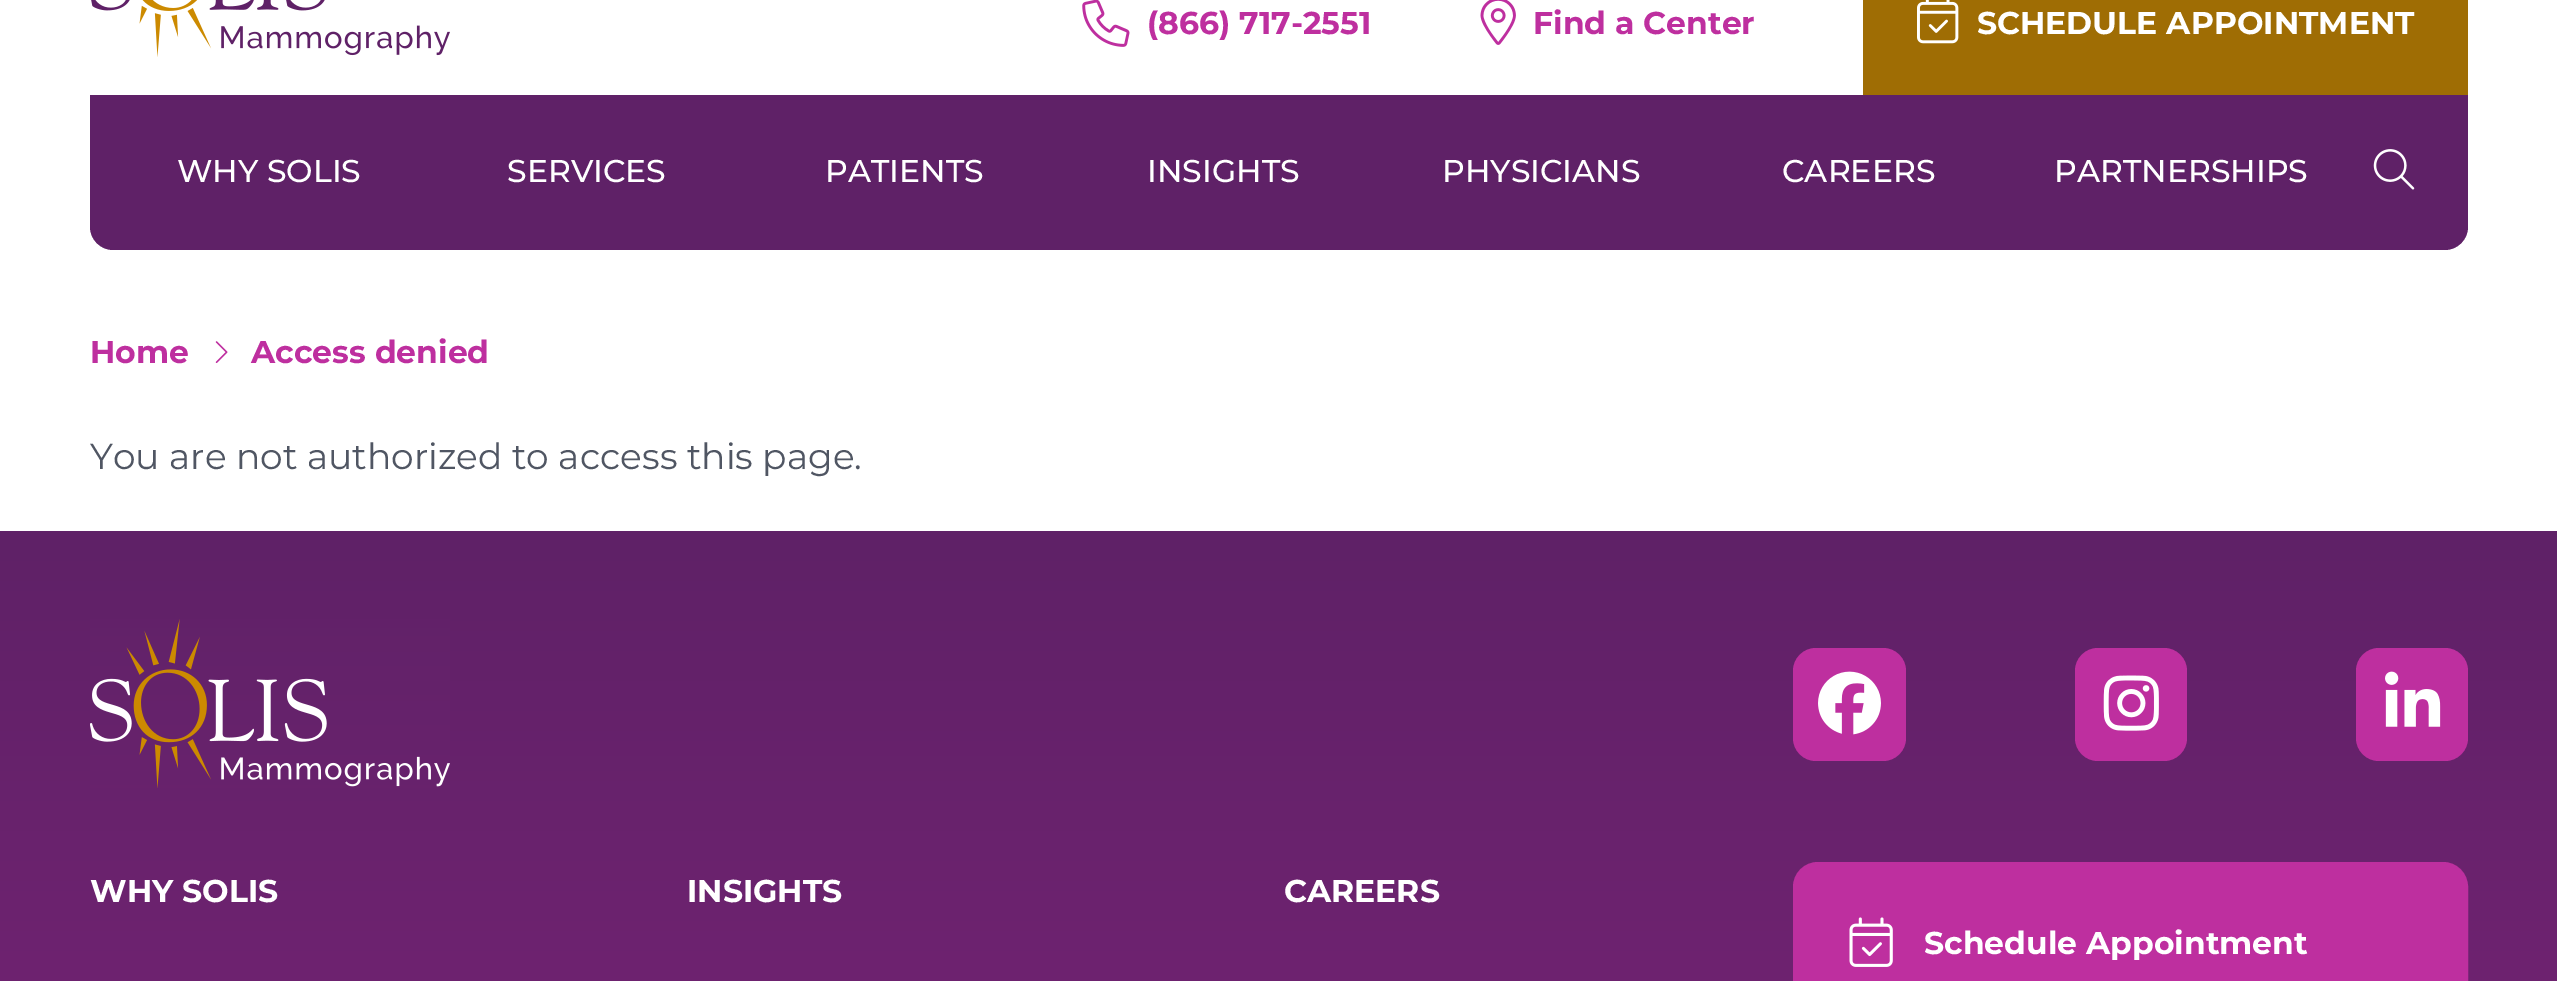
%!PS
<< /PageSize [2557 981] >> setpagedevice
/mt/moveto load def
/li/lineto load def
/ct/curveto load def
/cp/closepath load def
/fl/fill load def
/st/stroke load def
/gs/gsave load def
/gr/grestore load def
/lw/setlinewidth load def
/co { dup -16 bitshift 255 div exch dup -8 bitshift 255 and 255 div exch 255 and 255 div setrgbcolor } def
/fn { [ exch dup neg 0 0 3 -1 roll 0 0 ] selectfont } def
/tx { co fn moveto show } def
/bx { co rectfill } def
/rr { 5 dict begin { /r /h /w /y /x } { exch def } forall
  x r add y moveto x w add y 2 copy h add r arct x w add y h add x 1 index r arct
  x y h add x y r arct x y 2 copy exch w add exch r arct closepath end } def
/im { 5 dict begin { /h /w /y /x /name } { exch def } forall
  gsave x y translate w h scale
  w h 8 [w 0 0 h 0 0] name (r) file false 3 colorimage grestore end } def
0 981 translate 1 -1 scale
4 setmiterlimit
0 0 2557 981 16#FFFFFF bx
(media/1.raw) 91 0 359 57 im
(media/2.raw) 1082 0 48 47 im
(media/3.raw) 1480 0 36 45 im
1863 0 605 95 16#9F6D04 bx
(media/4.raw) 1917 0 42 44 im
16#5F2167 co
90 95 mt 2468 95 li 2468 227 li 2468 239.5 2457.5 250 2445 250 ct 113 250 li 100.5 250 90 239.5 90 227 ct cp fl
(media/5.raw) 2373 149 42 41 im
(media/6.raw) 215 341 13 22 im
gs 0 531 mt 2557 531 li 2557 981 li 0 981 li cp clip newpath
<< /ShadingType 2 /ColorSpace /DeviceRGB /Coords [1279 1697 1279 531] /Extend [true true] /Function << /FunctionType 2 /Domain [0 1] /C0 [.525 .153 .498] /C1 [.373 .129 .404] /N 1 >> >> shfill gr
(media/7.raw) 90 619 360 169 im
16#BE2F9F co
1793 648 113 113 23 rr fl
(media/8.raw) 1818 671 63 64 im
2075 648 112 113 23 rr fl
(media/9.raw) 2103 675 56 56 im
2356 648 112 113 23 rr fl
(media/10.raw) 2385 671 56 56 im
1796.5 865.5 668 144 21.5 rr gs fl gr
7 lw
st
(media/11.raw) 1849 917 44 50 im
(\(866\) 717-2551) 1147 34 /Montserrat-Bold 31.5 16#BE2F9F tx
(Find a Center) 1533 34 /Montserrat-Bold 31.5 16#BE2F9F tx
(SCHEDULE APPOINTMENT) 1977 34 /Montserrat-Bold 31.5 16#FFFFFF tx
(WHY SOLIS) 177 182 /Montserrat-Medium 31.5 16#FFFFFF tx
(SERVICES) 507 182 /Montserrat-Medium 31.5 16#FFFFFF tx
(PATIENTS) 825 182 /Montserrat-Medium 31.5 16#FFFFFF tx
(INSIGHTS) 1147 182 /Montserrat-Medium 31.5 16#FFFFFF tx
(PHYSICIANS) 1442 182 /Montserrat-Medium 31.5 16#FFFFFF tx
(CAREERS) 1782 182 /Montserrat-Medium 31.5 16#FFFFFF tx
(PARTNERSHIPS) 2054 182 /Montserrat-Medium 31.5 16#FFFFFF tx
(Home) 90 363 /Montserrat-Bold 31.5 16#BE2F9F tx
(Access denied) 251 363 /Montserrat-Bold 31.5 16#BE2F9F tx
(You are not authorized to access this page.) 90 469 /Montserrat-Regular 36 16#505663 tx
(WHY SOLIS) 90 902 /Montserrat-Bold 31.5 16#FFFFFF tx
(INSIGHTS) 687 902 /Montserrat-Bold 31.5 16#FFFFFF tx
(CAREERS) 1284 902 /Montserrat-Bold 31.5 16#FFFFFF tx
(Schedule Appointment) 1924 954 /Montserrat-Bold 31.5 16#FFFFFF tx
showpage
